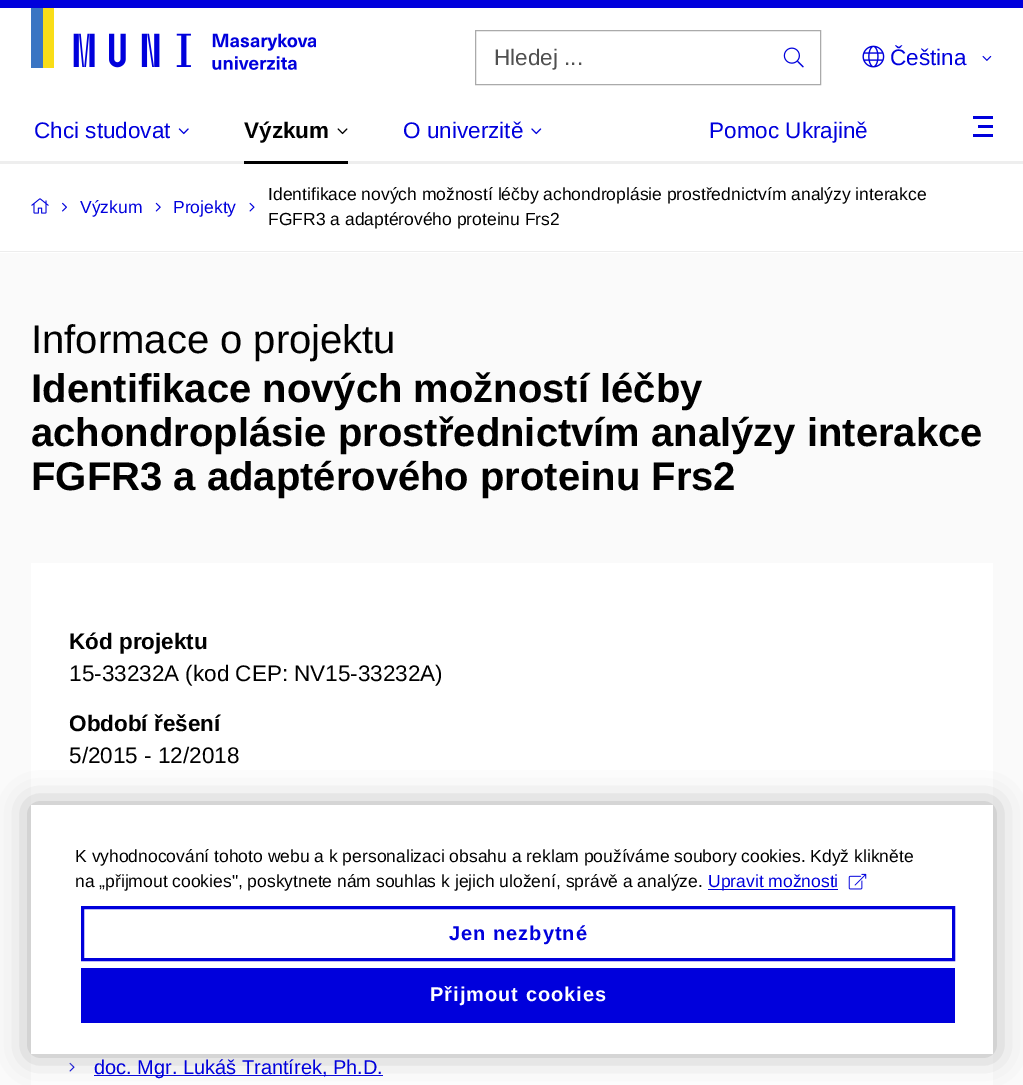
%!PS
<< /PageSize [1023 1085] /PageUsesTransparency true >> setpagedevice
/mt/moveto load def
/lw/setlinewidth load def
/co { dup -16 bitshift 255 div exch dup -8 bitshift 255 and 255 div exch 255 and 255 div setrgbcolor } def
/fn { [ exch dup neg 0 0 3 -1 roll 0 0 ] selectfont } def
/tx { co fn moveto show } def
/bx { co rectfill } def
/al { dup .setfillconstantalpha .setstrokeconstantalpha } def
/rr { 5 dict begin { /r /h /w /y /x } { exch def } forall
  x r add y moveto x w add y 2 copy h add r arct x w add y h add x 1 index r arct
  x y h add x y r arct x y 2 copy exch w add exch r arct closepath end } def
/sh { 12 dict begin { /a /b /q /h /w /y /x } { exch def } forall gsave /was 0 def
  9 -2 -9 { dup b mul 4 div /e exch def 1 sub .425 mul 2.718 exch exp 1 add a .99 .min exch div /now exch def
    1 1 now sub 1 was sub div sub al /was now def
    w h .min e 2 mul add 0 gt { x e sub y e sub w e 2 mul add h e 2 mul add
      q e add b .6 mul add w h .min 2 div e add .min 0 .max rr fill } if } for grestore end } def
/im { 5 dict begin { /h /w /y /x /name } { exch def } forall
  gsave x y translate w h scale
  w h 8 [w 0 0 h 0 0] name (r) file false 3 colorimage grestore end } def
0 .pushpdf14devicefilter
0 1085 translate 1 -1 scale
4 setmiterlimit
0 0 1023 1085 16#FAFAFA bx
0 8 1023 153 16#FFFFFF bx
0 0 1023 8 16#0000DC bx
0 161 1023 3 16#EEEEEE bx
(media/1.raw) 31 8 285 62 im
16#AAAAAA co
475.5 30.5 345 54 rectstroke
(media/2.raw) 783 47 21 21 im
(media/3.raw) 862 45 23 23 im
(media/4.raw) 982 55 10 6 im
(media/5.raw) 178 128 11 7 im
244 161 104 3 16#000000 bx
(media/6.raw) 337 128 11 7 im
(media/7.raw) 531 128 11 7 im
973 116 20 3 16#0000DC bx
978 125 15 3 16#0000DC bx
973 134 20 3 16#0000DC bx
0 164 1023 89 16#FFFFFF bx
0 251 1023 1 16#EDEDED bx
(media/8.raw) 31 198 18 16 im
(media/9.raw) 62 202 5 10 im
(media/10.raw) 155 202 6 10 im
(media/11.raw) 249 202 6 10 im
31 563 962 522 16#FFFFFF bx
(media/11.raw) 69 1062 6 10 im
94 1075 289 1 16#0000DC bx
16#AAAAAA co
31 805 962 249 0 15.5 1 sh
31 805 962 249 16#FFFFFF bx
708 889 130 1 16#0000DC bx
(media/12.raw) 848 873 19 17 im
3 lw
82.5 907.5 871 52 rectstroke
81 968 874 55 16#0000DC bx
(Hledej ...) 494 65 /LiberationSans-Regular 22.5 16#505050 tx
(Čeština) 890 65 /LiberationSans-Regular 22.5 16#0000DC tx
(Chci studovat) 34 138 /LiberationSans-Regular 22.5 16#0000DC tx
(Výzkum) 244 138 /LiberationSans-Bold 22.5 16#000000 tx
(O univerzitě) 403 138 /LiberationSans-Regular 22.5 16#0000DC tx
(Pomoc Ukrajině) 709 138 /LiberationSans-Regular 22.5 16#0000DC tx
(Výzkum) 80 213 /LiberationSans-Regular 17.5 16#0000DC tx
(Projekty) 173 213 /LiberationSans-Regular 17.5 16#0000DC tx
(Identifikace nových možností léčby achondroplásie prostřednictvím analýzy interakce) 268 200 /LiberationSans-Regular 17.5 16#000000 tx
(FGFR3 a adaptérového proteinu Frs2) 268 225 /LiberationSans-Regular 17.5 16#000000 tx
(Informace o projektu) 31 353 /LiberationSans-Regular 40 16#000000 tx
(Identifikace nových možností léčby) 31 402 /LiberationSans-Bold 40 16#000000 tx
(achondroplásie prostřednictvím analýzy interakce) 31 446 /LiberationSans-Bold 40 16#000000 tx
(FGFR3 a adaptérového proteinu Frs2) 31 490 /LiberationSans-Bold 40 16#000000 tx
(Kód projektu) 69 649 /LiberationSans-Bold 22.5 16#000000 tx
(15-33232A \(kod CEP: NV15-33232A\)) 69 681 /LiberationSans-Regular 22.5 16#000000 tx
(Období řešení) 69 731 /LiberationSans-Bold 22.5 16#000000 tx
(5/2015 - 12/2018) 69 763 /LiberationSans-Regular 22.5 16#000000 tx
(doc. Mgr. Lukáš Trantírek, Ph.D.) 94 1074 /LiberationSans-Regular 20 16#0000DC tx
(K vyhodnocování tohoto webu a k personalizaci obsahu a reklam používáme soubory cookies. Když klikněte) 75 862 /LiberationSans-Regular 17.5 16#000000 tx
(na „přijmout cookies", poskytnete nám souhlas k jejich uložení, správě a analýze.) 75 887 /LiberationSans-Regular 17.5 16#000000 tx
(Upravit možnosti) 708 887 /LiberationSans-Regular 17.5 16#0000DC tx
/LiberationSans-Bold 20 fn
449 940 mt 1 0 (Jen nezbytné) ashow
16#FFFFFF co
430 1001 mt 1 0 (Přijmout cookies) ashow
.poppdf14devicefilter showpage
